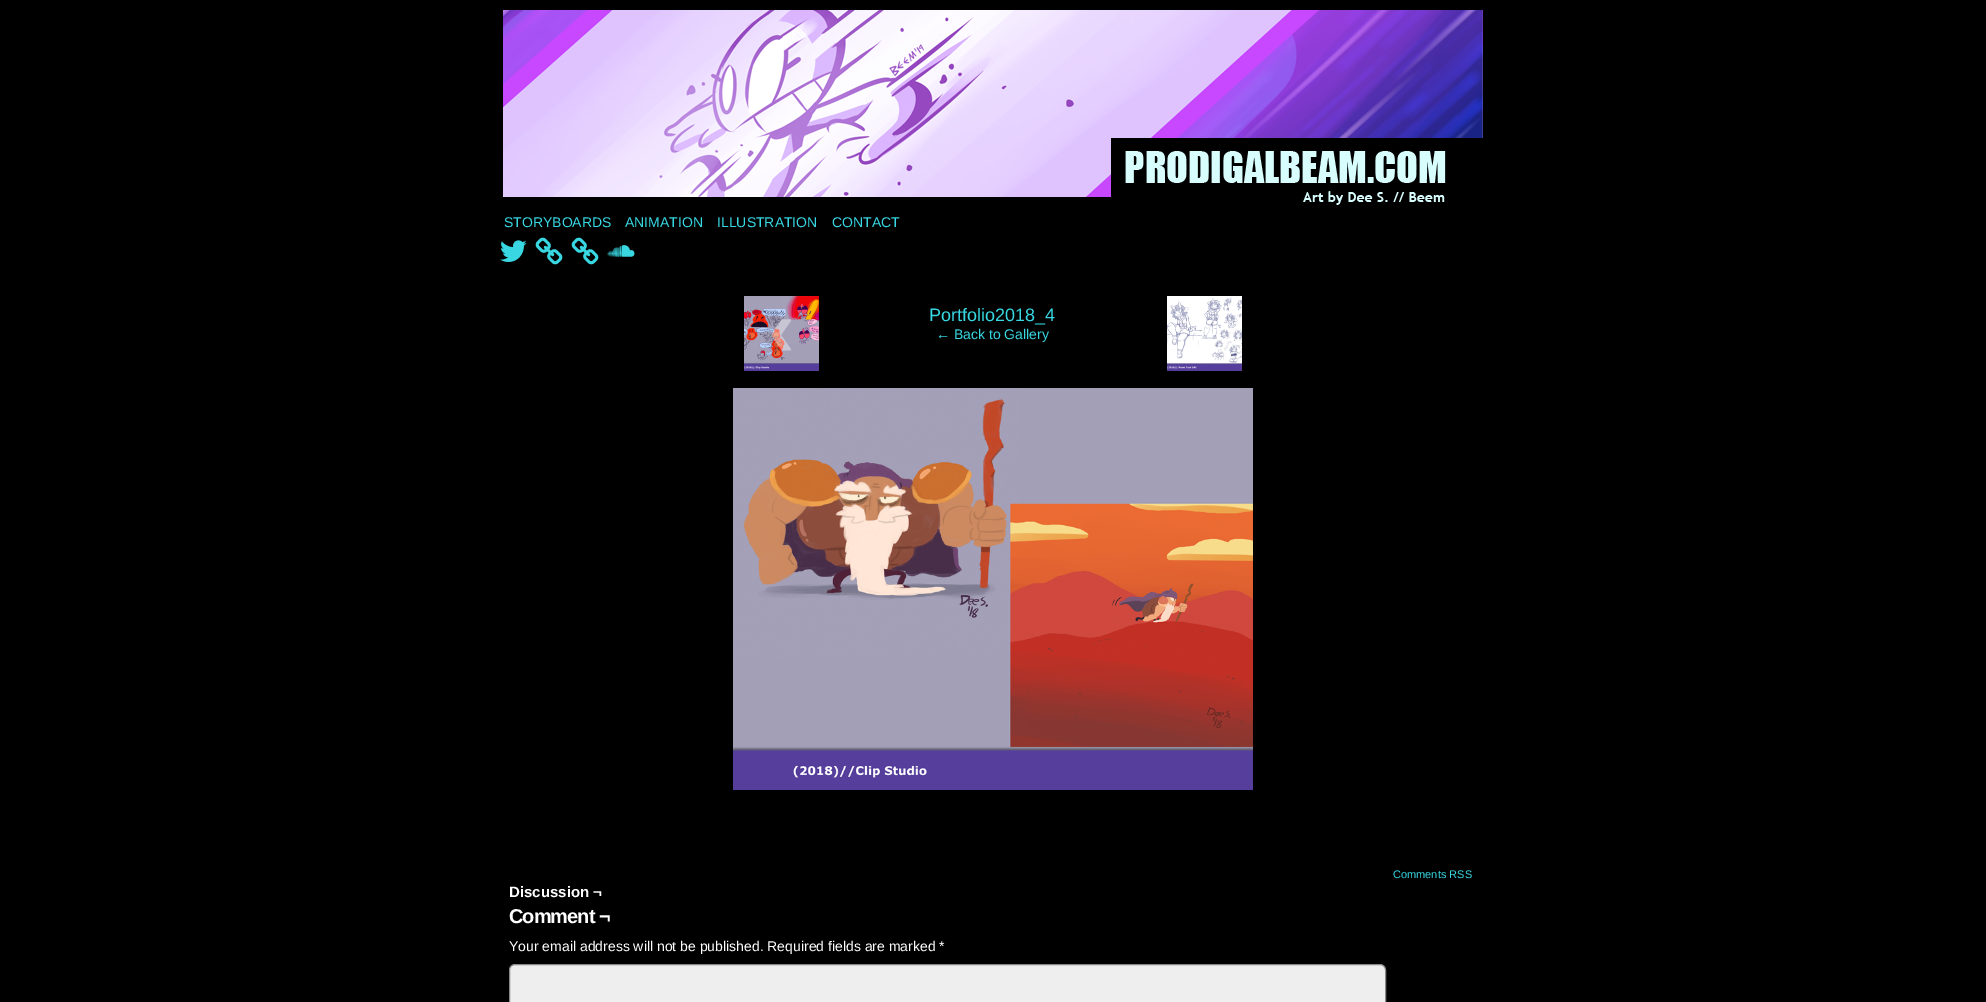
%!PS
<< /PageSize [1986 1002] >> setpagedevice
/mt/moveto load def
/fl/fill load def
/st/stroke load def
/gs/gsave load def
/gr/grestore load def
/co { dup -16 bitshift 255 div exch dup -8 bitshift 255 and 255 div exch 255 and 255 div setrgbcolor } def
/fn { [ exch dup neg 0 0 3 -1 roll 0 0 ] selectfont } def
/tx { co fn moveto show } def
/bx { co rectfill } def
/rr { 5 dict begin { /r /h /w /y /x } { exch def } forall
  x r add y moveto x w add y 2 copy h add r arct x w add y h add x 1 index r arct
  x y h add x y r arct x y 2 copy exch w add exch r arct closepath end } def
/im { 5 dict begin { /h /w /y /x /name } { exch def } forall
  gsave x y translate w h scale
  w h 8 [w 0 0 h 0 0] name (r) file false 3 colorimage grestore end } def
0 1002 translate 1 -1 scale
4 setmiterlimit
0 0 1986 1002 16#000000 bx
(media/1.raw) 503 10 980 195 im
(media/2.raw) 500 240 27 22 im
(media/3.raw) 535 237 28 28 im
(media/3.raw) 571 237 28 28 im
(media/4.raw) 607 245 28 12 im
(media/5.raw) 744 296 75 75 im
(media/7.raw) 1167 296 75 75 im
(media/8.raw) 1198 322 17 24 im
(media/9.raw) 733 388 520 402 im
16#EEEEEE co
509.5 964.5 876 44 5.5 rr gs fl gr
16#888888 co
st
(STORYBOARDS) 504 227 /LiberationSans-Regular 14 16#38D7E2 tx
(ANIMATION) 625 227 /LiberationSans-Regular 14 16#38D7E2 tx
(ILLUSTRATION) 717 227 /LiberationSans-Regular 14 16#38D7E2 tx
(CONTACT) 832 227 /LiberationSans-Regular 14 16#38D7E2 tx
(‹) 768 356 /LiberationSans-Bold 80 16#FFFFFF tx
(media/6.raw) 771 319 21 32 im
(Portfolio2018_4) 929 321 /LiberationSans-Regular 18 16#38D7E2 tx
(← Back to Gallery) 936 339 /LiberationSans-Regular 14 16#38D7E2 tx
(Comments RSS) 1393 878 /LiberationSans-Regular 11 16#38D7E2 tx
(Discussion ¬) 509 897 /LiberationSans-Bold 15 16#FFFFFF tx
/LiberationSans-Bold 20 fn
509 923 mt -1 0 (Comment ¬) ashow
(Your email address will not be published. Required fields are marked *) 509 951 /LiberationSans-Regular 14 16#FFFFFF tx
showpage
